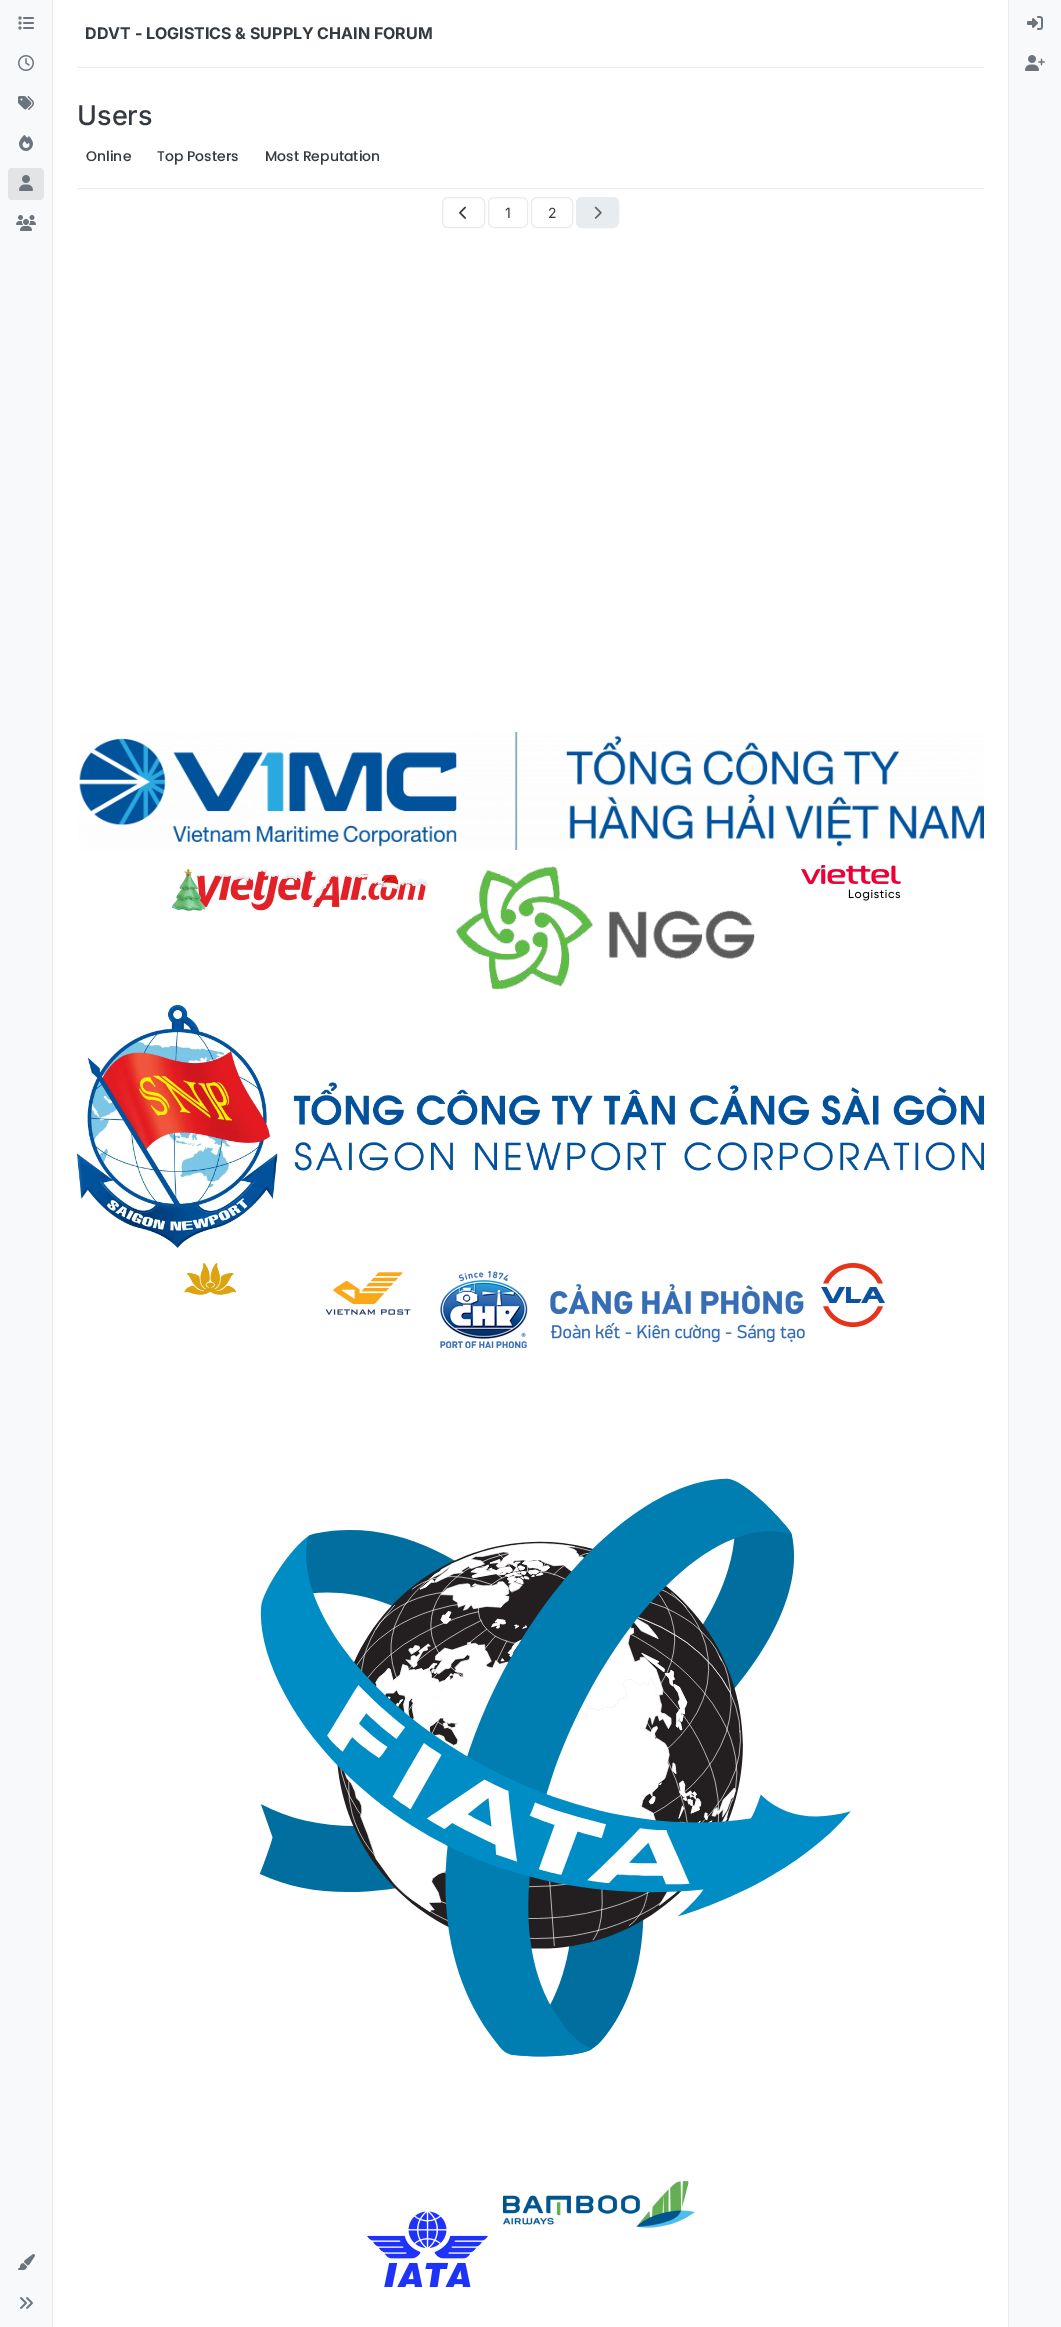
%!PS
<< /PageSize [1061 2327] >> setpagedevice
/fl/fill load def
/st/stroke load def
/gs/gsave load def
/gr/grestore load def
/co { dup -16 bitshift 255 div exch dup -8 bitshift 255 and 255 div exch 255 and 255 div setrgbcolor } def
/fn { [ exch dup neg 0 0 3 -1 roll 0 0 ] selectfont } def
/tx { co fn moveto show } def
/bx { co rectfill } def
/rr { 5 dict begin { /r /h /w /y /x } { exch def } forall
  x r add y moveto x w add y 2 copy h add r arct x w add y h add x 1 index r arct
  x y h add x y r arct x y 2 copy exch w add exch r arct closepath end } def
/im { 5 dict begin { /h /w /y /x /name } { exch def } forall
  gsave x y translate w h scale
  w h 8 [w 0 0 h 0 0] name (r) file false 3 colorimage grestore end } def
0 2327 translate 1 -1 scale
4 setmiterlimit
0 0 1061 2327 16#FFFFFF bx
0 0 52 2327 16#F8F9FA bx
52 0 1 2327 16#E9ECEF bx
(media/1.raw) 18 16 16 14 im
(media/2.raw) 18 55 16 16 im
(media/3.raw) 18 96 16 14 im
(media/4.raw) 19 135 14 16 im
16#E3E4E5 co
8 168 36 32 4 rr fl
(media/5.raw) 19 175 14 16 im
(media/6.raw) 16 215 20 16 im
(media/7.raw) 18 2254 17 16 im
(media/8.raw) 20 2297 13 12 im
77 67 907 1 16#E9ECEF bx
77 188 907 1 16#E9ECEF bx
442.5 197.5 42 30 5.5 rr st
(media/9.raw) 459 206 7 13 im
488.5 197.5 39 30 5.5 rr st
531.5 197.5 41 30 5.5 rr st
576.5 197.5 42 30 5.5 rr gs fl gr
st
(media/10.raw) 594 206 8 13 im
(media/11.raw) 79 732 905 118 im
(media/12.raw) 172 868 256 43 im
(media/13.raw) 455 866 300 124 im
(media/14.raw) 801 865 100 36 im
(media/15.raw) 77 1005 907 243 im
(media/16.raw) 184 1263 53 32 im
(media/17.raw) 325 1272 86 43 im
(media/18.raw) 440 1271 365 77 im
(media/19.raw) 821 1263 64 64 im
(media/20.raw) 259 1478 592 579 im
(media/21.raw) 503 2180 192 48 im
(media/22.raw) 367 2211 121 76 im
1009 0 52 2327 16#F8F9FA bx
1008 0 1 2327 16#E9ECEF bx
(media/23.raw) 1027 16 16 14 im
(media/24.raw) 1025 55 20 16 im
(DDVT - LOGISTICS & SUPPLY CHAIN FORUM) 85 39 /Inter-Bold 16 16#343A40 tx
(Users) 77 125 /Inter-Medium 27 16#343A40 tx
(Online) 86 161 /Poppins-Medium 14 16#343A40 tx
(Top Posters) 157 161 /Poppins-Medium 14 16#343A40 tx
(Most Reputation) 265 161 /Poppins-Medium 14 16#343A40 tx
(1) 505 218 /Inter-Regular 14 16#343A40 tx
(2) 548 218 /Inter-Regular 14 16#343A40 tx
showpage
